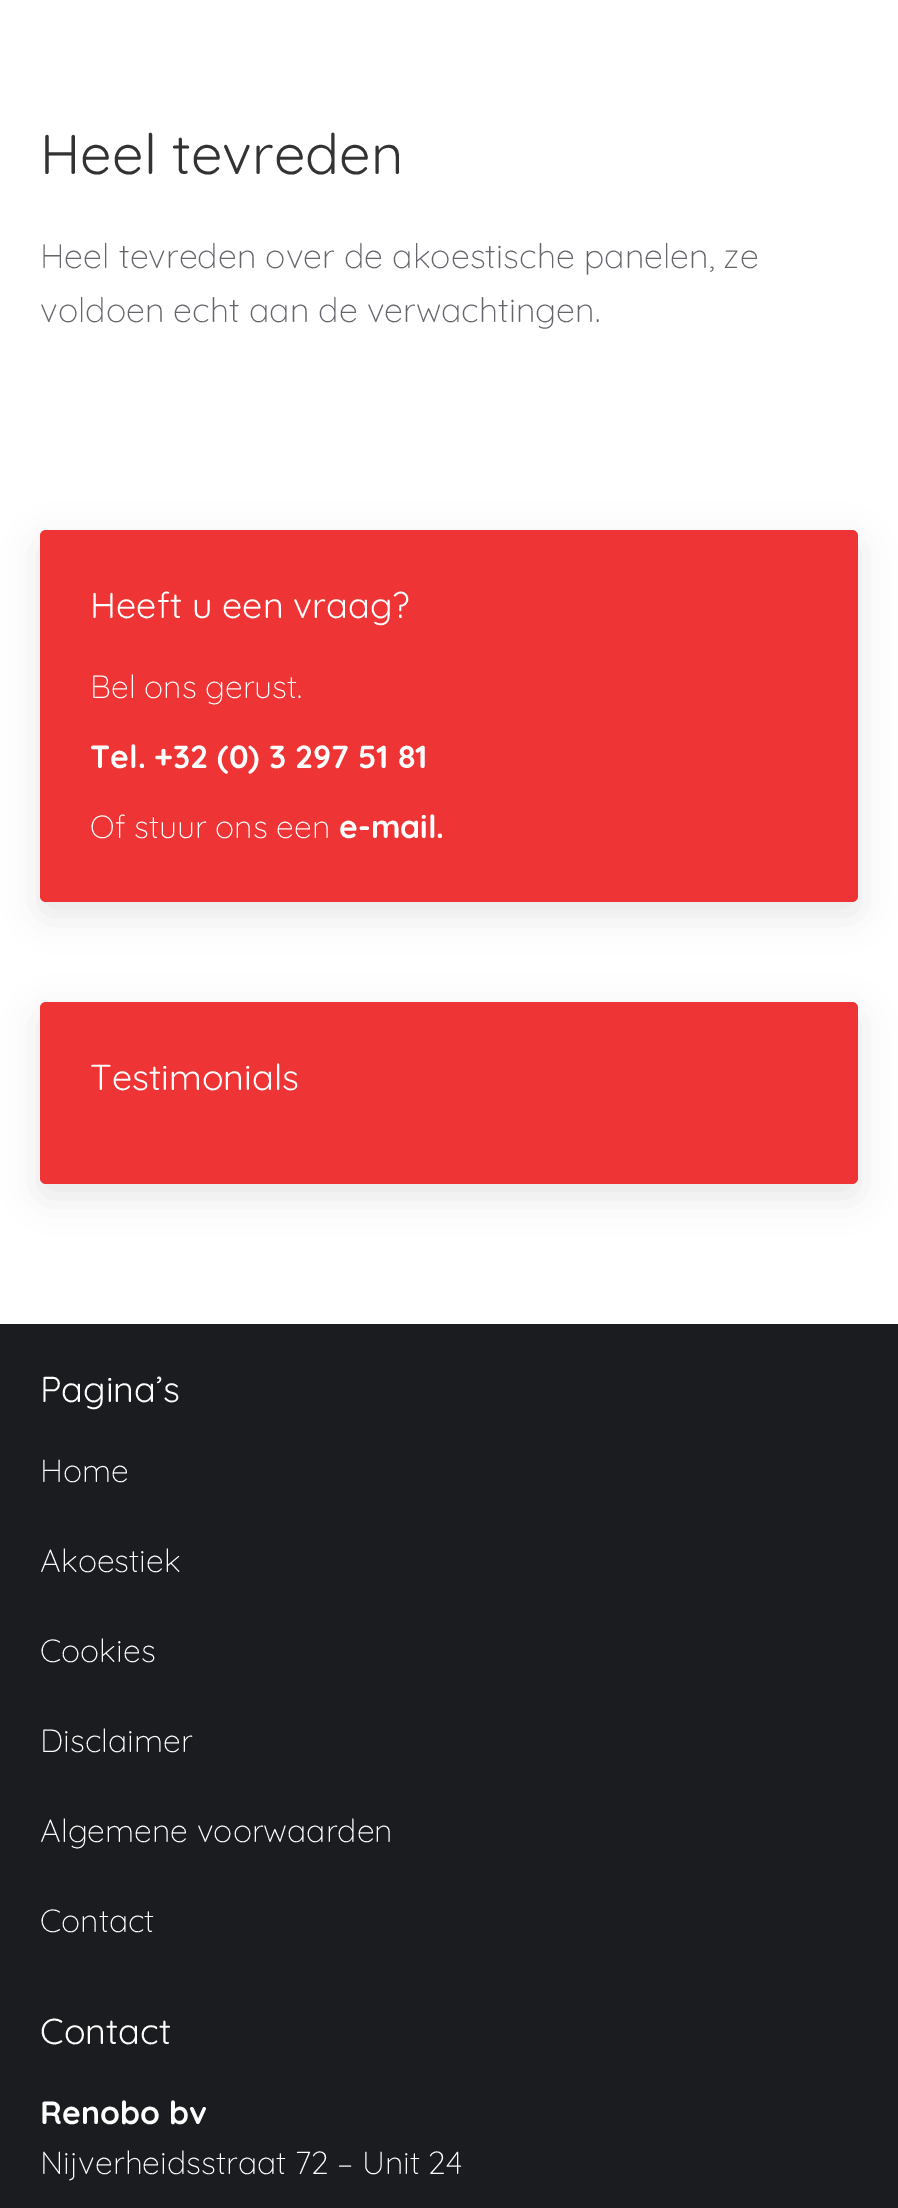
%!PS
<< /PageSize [898 2208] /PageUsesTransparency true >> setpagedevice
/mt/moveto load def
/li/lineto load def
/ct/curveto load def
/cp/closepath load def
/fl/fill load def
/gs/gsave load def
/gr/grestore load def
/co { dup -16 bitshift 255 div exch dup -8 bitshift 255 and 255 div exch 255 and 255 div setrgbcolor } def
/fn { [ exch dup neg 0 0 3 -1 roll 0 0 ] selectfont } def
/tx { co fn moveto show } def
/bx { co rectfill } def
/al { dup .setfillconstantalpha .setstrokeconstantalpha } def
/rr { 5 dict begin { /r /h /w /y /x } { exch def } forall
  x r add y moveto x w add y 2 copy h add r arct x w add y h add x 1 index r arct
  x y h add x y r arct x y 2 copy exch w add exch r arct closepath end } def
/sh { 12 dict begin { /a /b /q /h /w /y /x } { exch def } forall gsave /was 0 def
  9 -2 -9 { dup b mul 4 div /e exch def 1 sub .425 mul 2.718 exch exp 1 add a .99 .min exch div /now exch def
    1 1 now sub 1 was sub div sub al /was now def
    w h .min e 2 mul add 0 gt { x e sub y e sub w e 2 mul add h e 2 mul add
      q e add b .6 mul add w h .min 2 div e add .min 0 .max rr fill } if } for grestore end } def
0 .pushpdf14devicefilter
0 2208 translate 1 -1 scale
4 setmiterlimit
0 0 898 2208 16#FFFFFF bx
gs
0 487 mt 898 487 li 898 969 li 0 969 li cp 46 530 mt 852 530 li 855.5 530 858 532.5 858 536 ct 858 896 li 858 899.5 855.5 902 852 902 ct 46 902 li 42.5 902 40 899.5 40 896 ct 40 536 li 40 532.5 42.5 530 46 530 ct cp eoclip newpath
16#000000 co
40 542 818 372 6 18 .1 sh
gr
0.83 al
16#EA0B0B co
40 530 818 372 6 rr fl
gs
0 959 mt 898 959 li 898 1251 li 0 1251 li cp 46 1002 mt 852 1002 li 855.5 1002 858 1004.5 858 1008 ct 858 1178 li 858 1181.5 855.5 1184 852 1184 ct 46 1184 li 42.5 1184 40 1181.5 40 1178 ct 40 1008 li 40 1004.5 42.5 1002 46 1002 ct cp eoclip newpath
1 al
16#000000 co
40 1014 818 182 6 18 .1 sh
gr
40 1002 818 182 6 rr fl
1 al
0 1324 898 884 16#1A1C20 bx
(Heel tevreden) 40 174 /Quicksand-Regular 56 16#333333 tx
(Heel tevreden over de akoestische panelen, ze) 40 268 /Quicksand-Light 34 16#63656B tx
(voldoen echt aan de verwachtingen.) 40 322 /Quicksand-Light 34 16#63656B tx
(Heeft u een vraag?) 90 618 /Quicksand-Regular 36 16#FFFFFF tx
(Bel ons gerust.) 90 698 /Quicksand-Light 32 16#FFFFFF tx
(Tel. +32 \(0\) 3 297 51 81) 90 768 /Quicksand-Bold 32 16#FFFFFF tx
(Of stuur ons een) 90 838 /Quicksand-Light 32 16#FFFFFF tx
(e-mail.) 339 838 /Quicksand-Bold 32 16#FFFFFF tx
(Testimonials) 90 1090 /Quicksand-Regular 36 16#FFFFFF tx
(Pagina’s) 40 1402 /Quicksand-Regular 36 16#FFFFFF tx
(Home) 40 1482 /Quicksand-Light 32 16#FFFFFF tx
(Akoestiek) 40 1572 /Quicksand-Light 32 16#FFFFFF tx
(Cookies) 40 1662 /Quicksand-Light 32 16#FFFFFF tx
(Disclaimer) 40 1752 /Quicksand-Light 32 16#FFFFFF tx
(Algemene voorwaarden) 40 1842 /Quicksand-Light 32 16#FFFFFF tx
(Contact) 40 1932 /Quicksand-Light 32 16#FFFFFF tx
(Contact) 40 2044 /Quicksand-Regular 36 16#FFFFFF tx
(Renobo bv) 40 2124 /Quicksand-Bold 32 16#FFFFFF tx
(Nijverheidsstraat 72 – Unit 24) 40 2174 /Quicksand-Light 32 16#FFFFFF tx
.poppdf14devicefilter showpage
